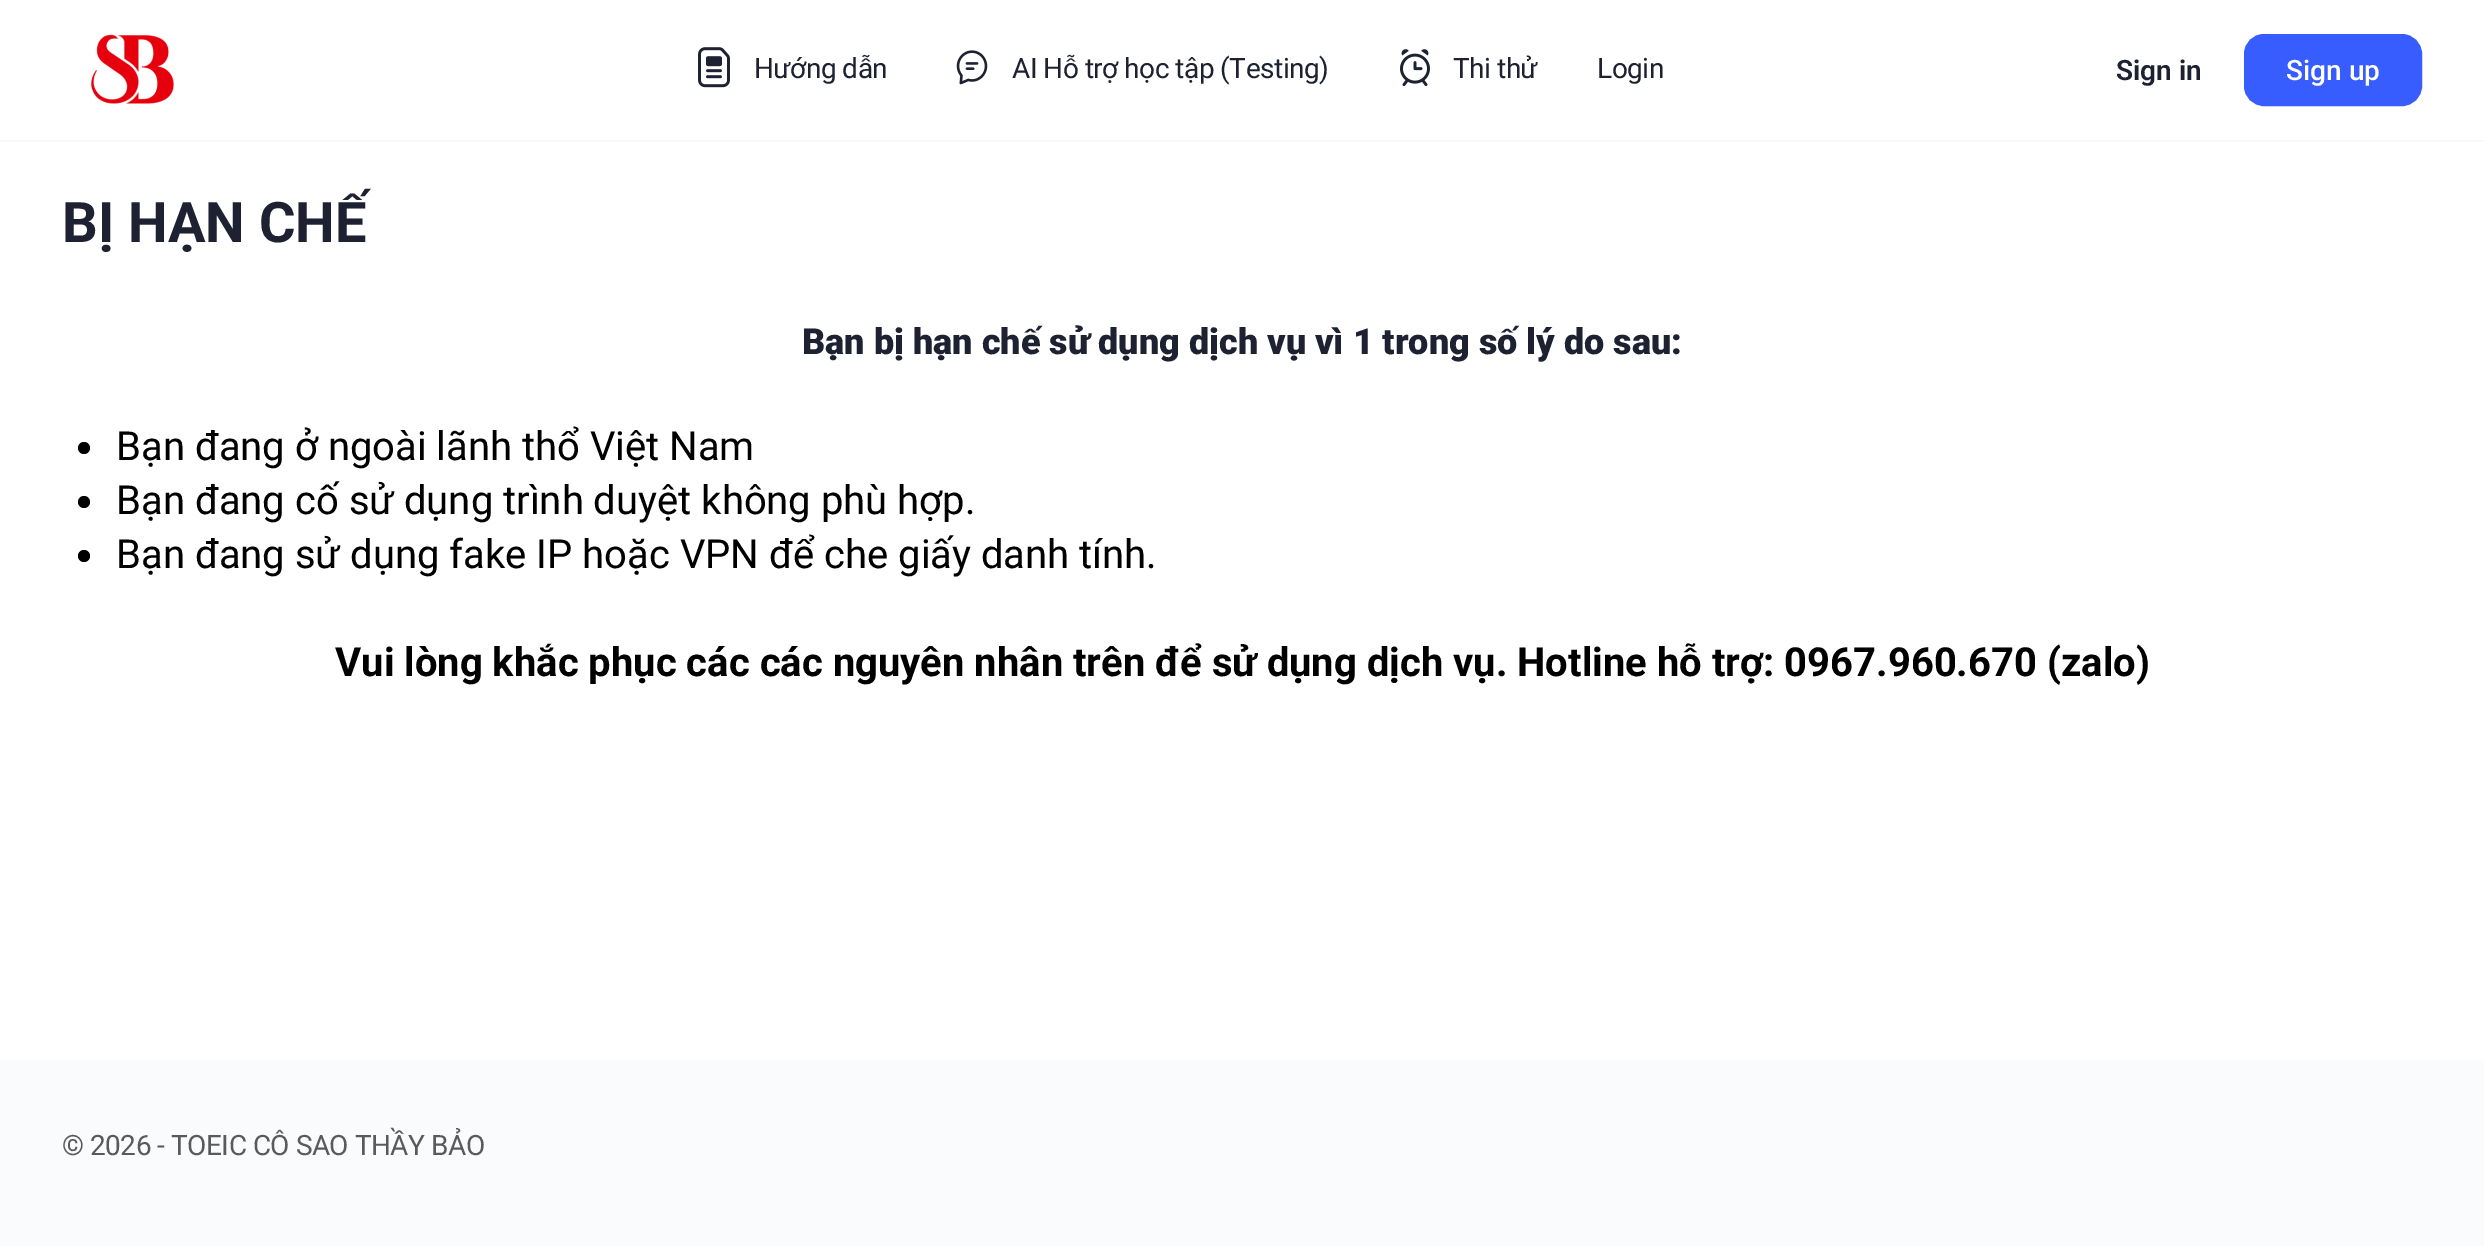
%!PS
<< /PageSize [2484 1246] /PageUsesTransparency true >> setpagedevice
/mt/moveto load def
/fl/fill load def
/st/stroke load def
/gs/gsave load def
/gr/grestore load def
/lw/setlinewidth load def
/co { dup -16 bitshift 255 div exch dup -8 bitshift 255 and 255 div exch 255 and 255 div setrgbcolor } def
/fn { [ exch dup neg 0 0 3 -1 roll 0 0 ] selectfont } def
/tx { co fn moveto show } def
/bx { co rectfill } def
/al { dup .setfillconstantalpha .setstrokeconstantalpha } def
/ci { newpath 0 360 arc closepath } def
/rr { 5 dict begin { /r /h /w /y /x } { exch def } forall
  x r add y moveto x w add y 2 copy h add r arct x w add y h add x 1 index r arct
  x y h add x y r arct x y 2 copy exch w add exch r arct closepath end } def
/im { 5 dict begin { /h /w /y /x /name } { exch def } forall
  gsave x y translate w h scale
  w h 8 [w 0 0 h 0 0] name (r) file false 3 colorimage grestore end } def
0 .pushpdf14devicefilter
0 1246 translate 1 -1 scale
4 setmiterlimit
0 0 2484 1246 16#FFFFFF bx
0.05 al
0 140 2484 2 16#8B8D9D bx
1 al
(media/1.raw) 90 34 84 70 im
(media/2.raw) 698 47 32 41 im
(media/3.raw) 956 50 32 35 im
(media/4.raw) 1400 49 30 38 im
16#385DFF co
2245 35 176 70 19 rr gs fl gr
2 lw
st
16#000000 co
84 448 6 ci fl
84 502 6 ci fl
84 556 6 ci fl
0 1060 2484 186 16#FAFBFD bx
/Roboto-Regular 28 fn
16#1E2132 co
754 78 mt -.5 0 (Hướng dẫn) ashow
1012 78 mt -.5 0 (AI Hỗ trợ học tập \(Testing\)) ashow
1453 78 mt -.5 0 (Thi thử) ashow
1597 78 mt -.5 0 (Login) ashow
(Sign in) 2116 80 /Roboto-SemiBold 28 16#1E2132 tx
(Sign up) 2286 80 /Roboto-Medium 28 16#FFFFFF tx
(BỊ HẠN CHẾ) 62 242 /Roboto-Bold 56 16#1E2132 tx
(Bạn bị hạn chế sử dụng dịch vụ vì 1 trong số lý do sau:) 802 354 /Roboto-Black 36 16#1E2132 tx
(Bạn đang ở ngoài lãnh thổ Việt Nam) 116 460 /Roboto-Regular 40 16#000000 tx
(Bạn đang cố sử dụng trình duyệt không phù hợp.) 116 514 /Roboto-Regular 40 16#000000 tx
(Bạn đang sử dụng fake IP hoặc VPN để che giấy danh tính.) 116 568 /Roboto-Regular 40 16#000000 tx
(Vui lòng khắc phục các các nguyên nhân trên để sử dụng dịch vụ. Hotline hỗ trợ: 0967.960.670 \(zalo\)) 335 676 /Roboto-Bold 40 16#000000 tx
/Roboto-Regular 28 fn
16#5A5A5A co
62 1155 mt -.5 0 (© 2026 - TOEIC CÔ SAO THẦY BẢO) ashow
.poppdf14devicefilter showpage
